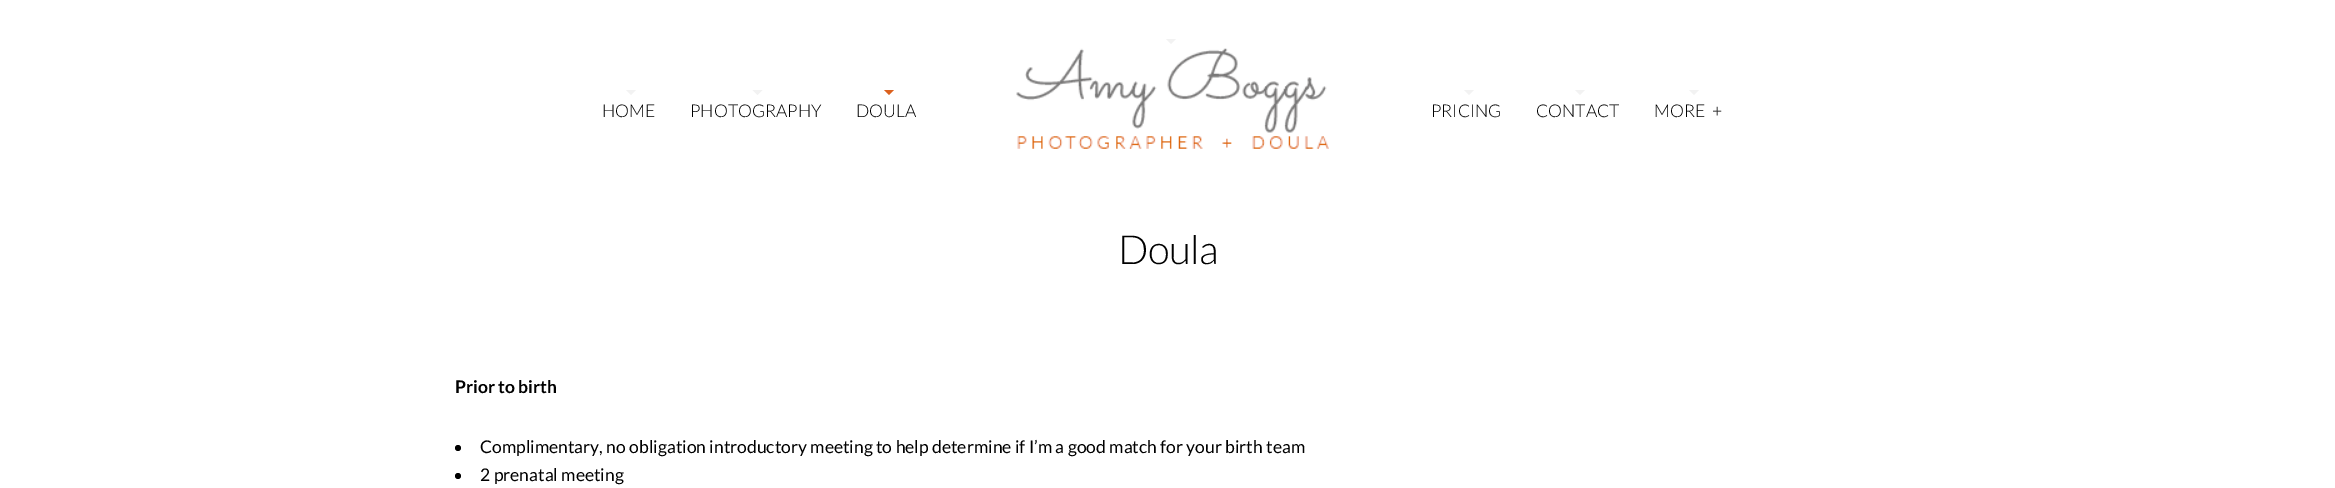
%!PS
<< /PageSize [2335 488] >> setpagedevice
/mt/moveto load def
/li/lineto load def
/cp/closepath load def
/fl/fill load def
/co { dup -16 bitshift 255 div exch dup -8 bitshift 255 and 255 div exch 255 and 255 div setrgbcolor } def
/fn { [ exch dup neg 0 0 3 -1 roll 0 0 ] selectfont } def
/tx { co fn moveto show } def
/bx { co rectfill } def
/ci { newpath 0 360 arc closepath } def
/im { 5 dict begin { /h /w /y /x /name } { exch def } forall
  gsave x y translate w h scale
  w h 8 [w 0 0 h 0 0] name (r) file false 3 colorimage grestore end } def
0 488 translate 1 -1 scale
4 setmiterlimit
0 0 2335 488 16#FFFFFF bx
16#F2F2F2 co
626 90 mt 636 90 li 631 95 li cp fl
752.5 90 mt 762.5 90 li 757.5 95 li cp fl
16#DB611E co
884 90 mt 894 90 li 889 95 li cp fl
16#F2F2F2 co
1166 39 mt 1176 39 li 1171 44 li cp fl
(media/1.raw) 1016 48 313 101 im
1464 90 mt 1474 90 li 1469 95 li cp fl
1575 90 mt 1585 90 li 1580 95 li cp fl
1689 90 mt 1699 90 li 1694 95 li cp fl
16#000000 co
458 448 3 ci fl
458 476 3 ci fl
(HOME) 602 117 /Lato-Light 17.5 16#000000 tx
(PHOTOGRAPHY) 690 117 /Lato-Light 17.5 16#000000 tx
(DOULA) 856 117 /Lato-Light 17.5 16#000000 tx
(PRICING) 1431 117 /Lato-Light 17.5 16#000000 tx
(CONTACT) 1536 117 /Lato-Light 17.5 16#000000 tx
(MORE) 1654 117 /Lato-Light 17.5 16#000000 tx
(+) 1712 117 /Lato-Light 17.5 16#000000 tx
/Lato-Light 40 fn
1118 264 mt -.5 0 (Doula) ashow
(Prior to birth) 455 393 /Lato-Bold 17.5 16#000000 tx
(Complimentary, no obligation introductory meeting to help determine if I’m a good match for your birth team) 480 453 /Lato-Regular 17.5 16#000000 tx
(2 prenatal meeting) 480 481 /Lato-Regular 17.5 16#000000 tx
showpage
